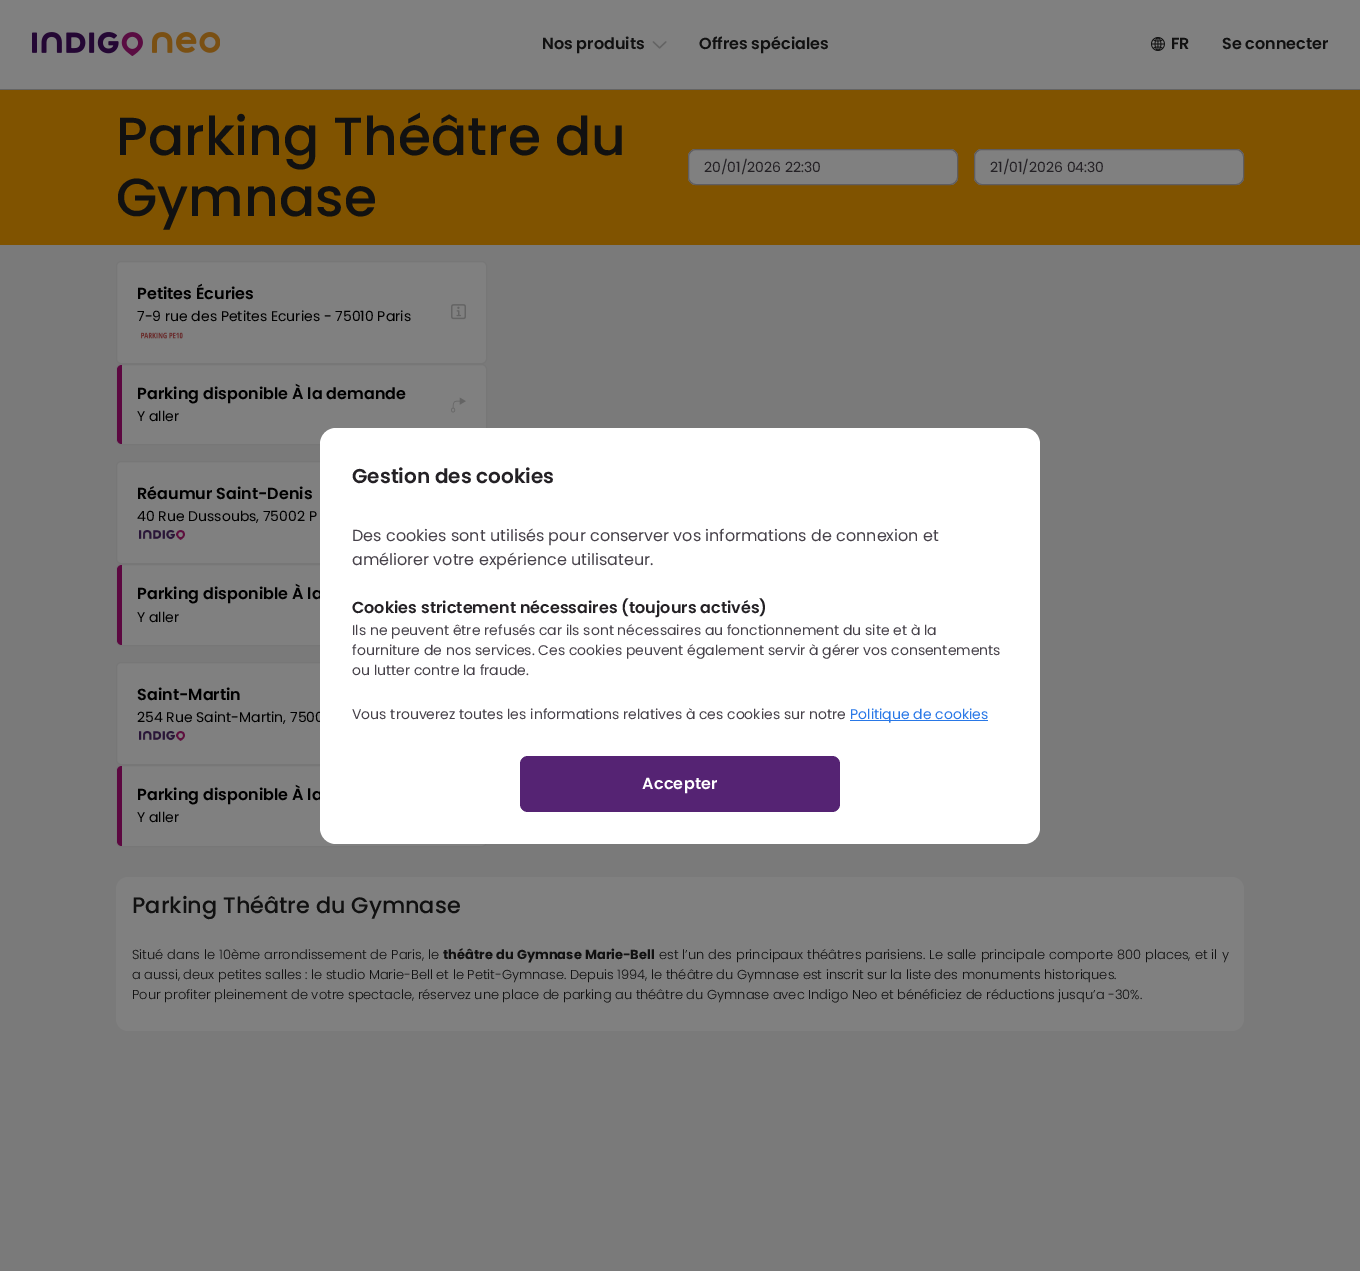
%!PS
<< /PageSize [1360 1271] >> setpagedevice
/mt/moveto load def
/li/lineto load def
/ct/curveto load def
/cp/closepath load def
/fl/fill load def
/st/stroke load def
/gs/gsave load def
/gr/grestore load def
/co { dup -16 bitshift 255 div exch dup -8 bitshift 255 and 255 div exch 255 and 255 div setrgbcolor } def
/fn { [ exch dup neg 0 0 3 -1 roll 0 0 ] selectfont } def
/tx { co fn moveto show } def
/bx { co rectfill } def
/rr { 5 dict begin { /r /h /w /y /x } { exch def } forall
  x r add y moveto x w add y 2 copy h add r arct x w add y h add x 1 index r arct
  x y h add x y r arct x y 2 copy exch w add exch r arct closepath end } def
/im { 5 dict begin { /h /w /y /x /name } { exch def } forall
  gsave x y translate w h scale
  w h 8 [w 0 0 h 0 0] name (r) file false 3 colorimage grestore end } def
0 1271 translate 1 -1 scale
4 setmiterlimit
0 0 1360 1271 16#7A7A7A bx
0 89 1360 1 16#646464 bx
0 0 1360 89 16#808080 bx
(media/1.raw) 32 32 188 24 im
(media/2.raw) 652 41 15 8 im
(media/3.raw) 1151 37 14 14 im
0 90 1360 155 16#805300 bx
16#808080 co
688 149 270 36 8 rr fl
16#5F5D60 co
688.5 149.5 269 35 7.5 rr st
16#808080 co
974 149 270 36 8 rr fl
16#5F5D60 co
974.5 149.5 269 35 7.5 rr st
16#808080 co
116.5 261.5 370 102 4.5 rr gs fl gr
16#777777 co
st
(media/4.raw) 141 332 42 7 im
(media/5.raw) 451 304 15 16 im
16#808080 co
116.5 364.5 370 80 4.5 rr gs fl gr
16#777777 co
st
16#5C0740 co
122 365 mt 122 444 li 119 444 117 442 117 439 ct 117 370 li 117 367 119 365 122 365 ct cp fl
(media/6.raw) 451 397 15 16 im
16#808080 co
116.5 461.5 370 102 4.5 rr gs fl gr
16#777777 co
st
(media/7.raw) 139 530 46 10 im
16#808080 co
116.5 564.5 370 81 4.5 rr gs fl gr
16#777777 co
st
16#5C0740 co
122 565 mt 122 645 li 119 645 117 643 117 640 ct 117 570 li 117 567 119 565 122 565 ct cp fl
16#808080 co
116.5 662.5 370 102 4.5 rr gs fl gr
16#777777 co
st
(media/7.raw) 139 731 46 10 im
16#808080 co
116.5 765.5 370 81 4.5 rr gs fl gr
16#777777 co
st
16#5C0740 co
122 766 mt 122 846 li 119 846 117 844 117 841 ct 117 771 li 117 768 119 766 122 766 ct cp fl
16#808080 co
116 877 1128 154 12 rr fl
(Nos produits) 542 49 /Poppins-SemiBold 16 16#111111 tx
(Offres spéciales) 699 49 /Poppins-SemiBold 16 16#111111 tx
(FR) 1171 49 /Poppins-SemiBold 16 16#111111 tx
(Se connecter) 1222 49 /Poppins-SemiBold 16 16#111111 tx
(Parking Théâtre du) 116 155 /Poppins-Medium 53.5 16#111111 tx
(Gymnase) 116 216 /Poppins-Medium 53.5 16#111111 tx
(20/01/2026 22:30) 704 172 /Poppins-Regular 14 16#242125 tx
(21/01/2026 04:30) 990 172 /Poppins-Regular 14 16#242125 tx
(Petites Écuries) 137 299 /Poppins-SemiBold 16 16#000000 tx
(7-9 rue des Petites Ecuries - 75010 Paris) 137 321 /Poppins-Regular 14 16#000000 tx
(Parking disponible À la demande) 137 399 /Poppins-SemiBold 16 16#000000 tx
(Y aller) 137 421 /Poppins-Regular 14 16#000000 tx
(Réaumur Saint-Denis) 137 499 /Poppins-SemiBold 16 16#000000 tx
(40 Rue Dussoubs, 75002 P) 137 521 /Poppins-Regular 14 16#000000 tx
(Parking disponible À la) 137 599 /Poppins-SemiBold 16 16#000000 tx
(Y aller) 137 622 /Poppins-Regular 14 16#000000 tx
(Saint-Martin) 137 700 /Poppins-SemiBold 16 16#000000 tx
(254 Rue Saint-Martin, 7500) 137 722 /Poppins-Regular 14 16#000000 tx
(Parking disponible À la) 137 800 /Poppins-SemiBold 16 16#000000 tx
(Y aller) 137 822 /Poppins-Regular 14 16#000000 tx
(Parking Théâtre du Gymnase) 132 913 /Poppins-Medium 22.4 16#111111 tx
/Poppins-Light 13 fn
132 959 mt .5 0 32 (Situé dans le 10ème arrondissement de Paris, le) widthshow
/Poppins-Bold 13 fn
443 959 mt .5 0 32 (théâtre du Gymnase Marie-Bell) widthshow
/Poppins-Light 13 fn
659 959 mt .5 0 32 (est l’un des principaux théâtres parisiens. Le salle principale comporte 800 places, et il y) widthshow
(a aussi, deux petites salles : le studio Marie-Bell et le Petit-Gymnase. Depuis 1994, le théâtre du Gymnase est inscrit sur la liste des monuments historiques.) 132 979 /Poppins-Light 13 16#111111 tx
(Pour profiter pleinement de votre spectacle, réservez une place de parking au théâtre du Gymnase avec Indigo Neo et bénéficiez de réductions jusqu’a -30%.) 132 999 /Poppins-Light 13 16#111111 tx
16#FFFFFF co
320 428 720 416 16 rr fl
(Gestion des cookies) 352 483 /Poppins-SemiBold 20 16#242125 tx
(Des cookies sont utilisés pour conserver vos informations de connexion et) 352 541 /Poppins-Regular 16 16#47424A tx
(améliorer votre expérience utilisateur.) 352 565 /Poppins-Regular 16 16#47424A tx
(Cookies strictement nécessaires \(toujours activés\)) 352 613 /Poppins-SemiBold 16 16#242125 tx
(Ils ne peuvent être refusés car ils sont nécessaires au fonctionnement du site et à la) 352 635 /Poppins-Regular 14 16#47424A tx
(fourniture de nos services. Ces cookies peuvent également servir à gérer vos consentements) 352 655 /Poppins-Regular 14 16#47424A tx
(ou lutter contre la fraude.) 352 675 /Poppins-Regular 14 16#47424A tx
(Vous trouverez toutes les informations relatives à ces cookies sur notre) 352 719 /Poppins-Regular 14 16#47424A tx
850 720 138 1 16#2978E7 bx
(Politique de cookies) 850 719 /Poppins-Regular 14 16#2978E7 tx
16#552373 co
520 756 320 56 8 rr fl
/Poppins-SemiBold 16 fn
16#FFFFFF co
642 789 mt .25 0 (Accepter) ashow
showpage
